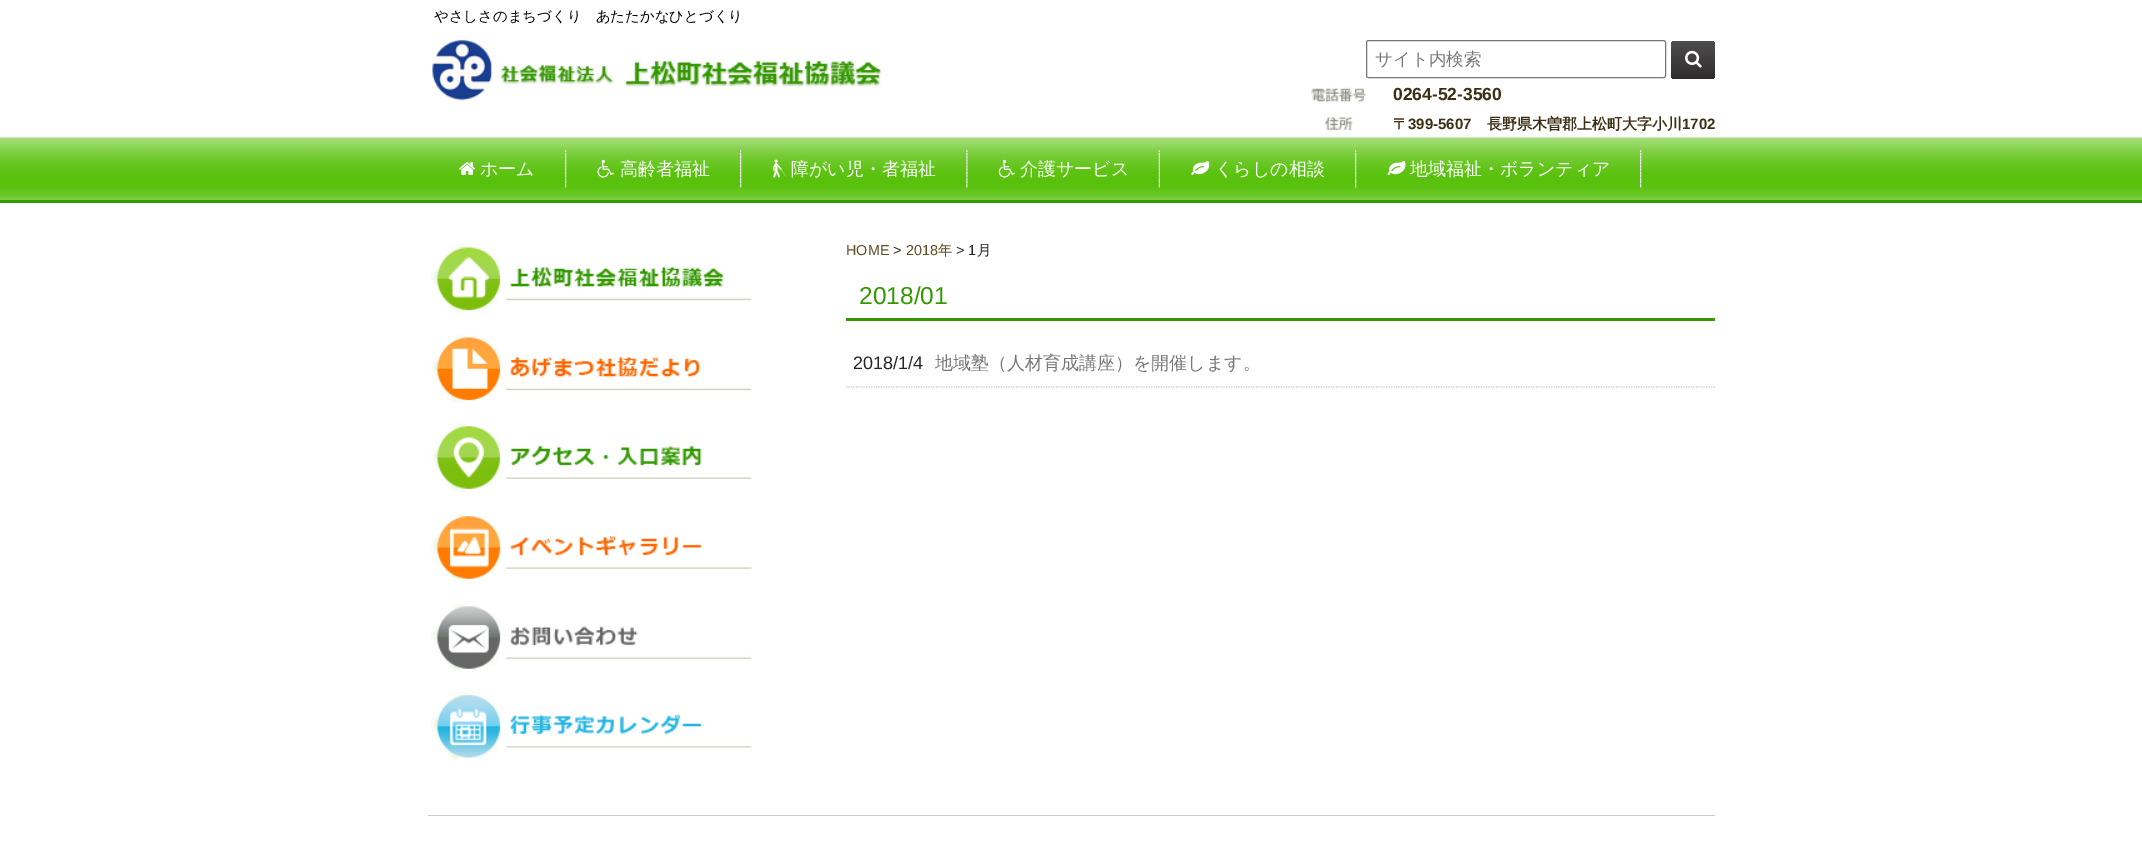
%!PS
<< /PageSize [2142 846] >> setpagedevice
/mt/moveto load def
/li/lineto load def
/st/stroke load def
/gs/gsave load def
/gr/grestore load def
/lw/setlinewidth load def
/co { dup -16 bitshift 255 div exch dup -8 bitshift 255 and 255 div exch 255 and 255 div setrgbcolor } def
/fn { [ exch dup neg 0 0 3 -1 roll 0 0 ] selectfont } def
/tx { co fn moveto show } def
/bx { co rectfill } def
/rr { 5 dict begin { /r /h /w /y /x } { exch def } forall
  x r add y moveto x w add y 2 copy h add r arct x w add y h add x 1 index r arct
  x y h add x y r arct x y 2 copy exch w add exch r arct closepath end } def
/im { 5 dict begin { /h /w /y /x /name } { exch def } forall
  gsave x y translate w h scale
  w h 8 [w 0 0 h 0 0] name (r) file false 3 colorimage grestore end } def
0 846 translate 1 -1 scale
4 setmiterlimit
0 0 2142 846 16#FFFFFF bx
(media/1.raw) 432 39 450 62 im
16#767676 co
1366.5 40.5 299 37 2 rr st
gs 1671 41 44 38 4 rr clip newpath
<< /ShadingType 2 /ColorSpace /DeviceRGB /Coords [1693 41 1693 79] /Extend [true true] /Function << /FunctionType 2 /Domain [0 1] /C0 [.31 .302 .302] /C1 [.18 .173 .173] /N 1 >> >> shfill gr
(media/2.raw) 1685 50 17 18 im
(media/3.raw) 1311 87 56 16 im
(media/4.raw) 1324 116 29 15 im
(media/5.raw) 0 137 2142 63 im
0 200 2142 3 16#339900 bx
(media/6.raw) 565 150 2 38 im
(media/7.raw) 459 162 17 13 im
(media/8.raw) 740 150 2 38 im
(media/9.raw) 597 159 17 19 im
(media/10.raw) 966 150 2 38 im
(media/11.raw) 772 159 15 19 im
(media/12.raw) 1158 150 2 38 im
(media/13.raw) 998 159 17 19 im
(media/6.raw) 1355 150 2 38 im
(media/14.raw) 1191 160 19 15 im
(media/8.raw) 1640 150 2 38 im
(media/15.raw) 1387 160 19 15 im
(media/16.raw) 431 244 322 69 im
(media/17.raw) 431 334 322 69 im
(media/18.raw) 431 423 321 69 im
(media/19.raw) 431 513 321 69 im
(media/20.raw) 431 603 321 69 im
(media/21.raw) 431 692 321 68 im
846 318 869 3 16#339900 bx
16#CCCCCC co
1.2 lw
[1.25 1.25] 0 setdash
846 387 mt 1715 387 li st
428 815 1287 1 16#CCCCCC bx
(やさしさのまちづくり　あたたかなひとづくり) 434 21 /WenQuanYiZenHei-Medium 14.4 16#000000 tx
(サイト内検索) 1375 65 /WenQuanYiZenHei-Medium 17.5 16#777777 tx
(0264-52-3560) 1393 100 /LiberationSans-Bold 17.5 16#3C2F13 tx
(〒) 1393 129 /WenQuanYiZenHei-Bold 15 16#3C2F13 tx
(399-5607) 1408 129 /LiberationSans-Bold 15 16#3C2F13 tx
(長野県木曽郡上松町大字小川) 1487 129 /WenQuanYiZenHei-Bold 15 16#3C2F13 tx
(1702) 1682 129 /LiberationSans-Bold 15 16#3C2F13 tx
(ホーム) 480 175 /WenQuanYiZenHei-Medium 18 16#FFFFFF tx
(高齢者福祉) 620 175 /WenQuanYiZenHei-Medium 18 16#FFFFFF tx
(障がい児・者福祉) 791 175 /WenQuanYiZenHei-Medium 18 16#FFFFFF tx
(介護サービス) 1020 175 /WenQuanYiZenHei-Medium 18 16#FFFFFF tx
(くらしの相談) 1215 175 /WenQuanYiZenHei-Medium 18 16#FFFFFF tx
(地域福祉・ボランティア) 1410 175 /WenQuanYiZenHei-Medium 18 16#FFFFFF tx
(HOME) 846 255 /LiberationSans-Regular 14.4 16#624E24 tx
(>) 893 255 /LiberationSans-Regular 14.4 16#252525 tx
(2018) 906 255 /LiberationSans-Regular 14.4 16#624E24 tx
(年) 938 255 /WenQuanYiZenHei-Medium 14.4 16#624E24 tx
(> 1) 956 255 /LiberationSans-Regular 14.4 16#252525 tx
(月) 977 255 /WenQuanYiZenHei-Medium 14.4 16#252525 tx
(2018/01) 859 304 /LiberationSans-Regular 24.5 16#339900 tx
(2018/1/4) 853 369 /LiberationSans-Regular 18 16#252525 tx
(地域塾（人材育成講座）を開催します。) 935 369 /WenQuanYiZenHei-Medium 18 16#777777 tx
showpage
